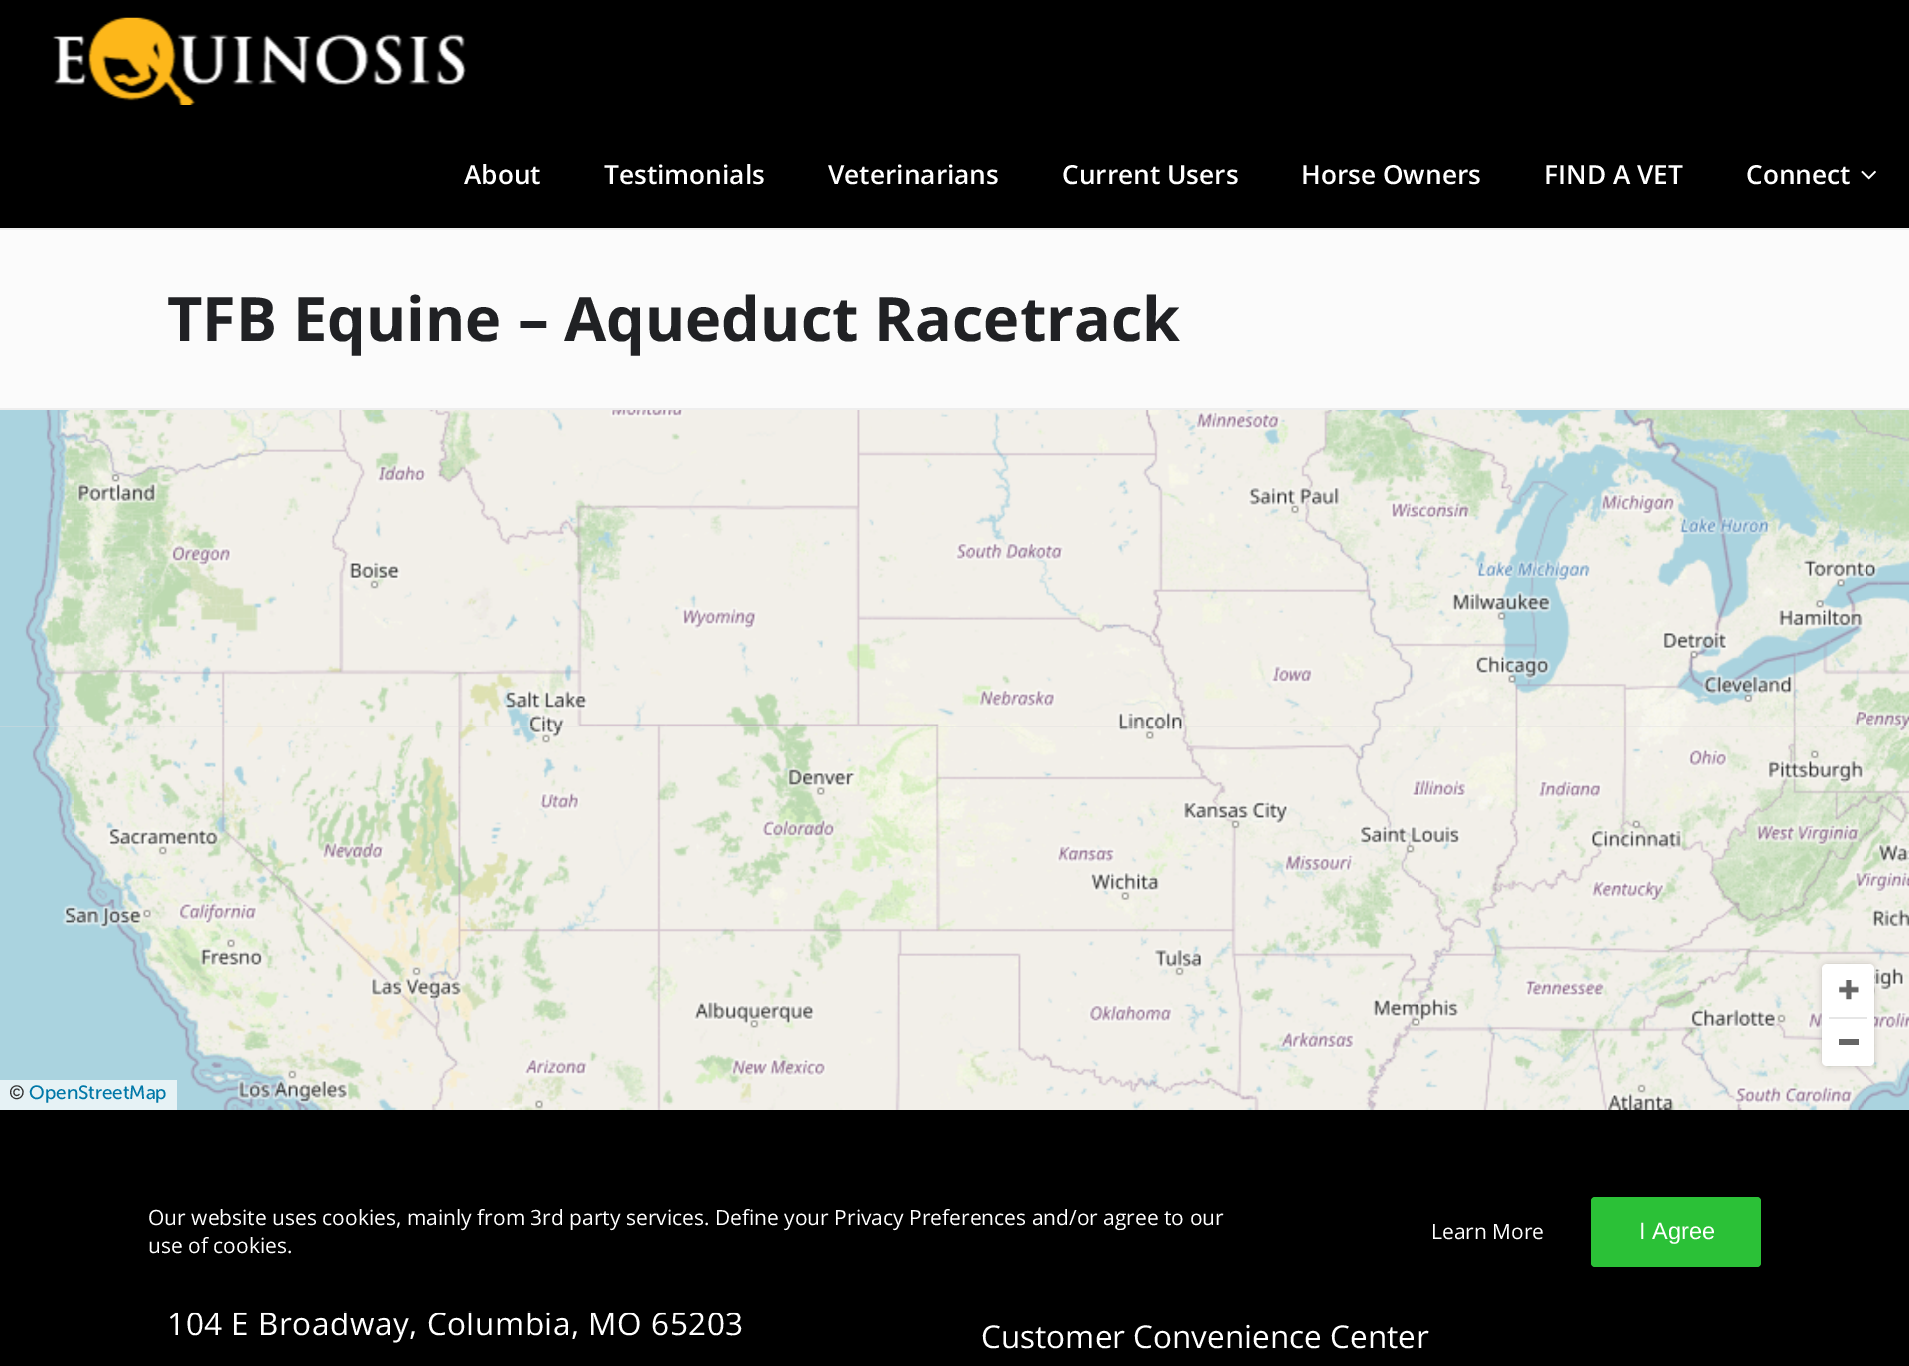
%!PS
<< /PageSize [1909 1366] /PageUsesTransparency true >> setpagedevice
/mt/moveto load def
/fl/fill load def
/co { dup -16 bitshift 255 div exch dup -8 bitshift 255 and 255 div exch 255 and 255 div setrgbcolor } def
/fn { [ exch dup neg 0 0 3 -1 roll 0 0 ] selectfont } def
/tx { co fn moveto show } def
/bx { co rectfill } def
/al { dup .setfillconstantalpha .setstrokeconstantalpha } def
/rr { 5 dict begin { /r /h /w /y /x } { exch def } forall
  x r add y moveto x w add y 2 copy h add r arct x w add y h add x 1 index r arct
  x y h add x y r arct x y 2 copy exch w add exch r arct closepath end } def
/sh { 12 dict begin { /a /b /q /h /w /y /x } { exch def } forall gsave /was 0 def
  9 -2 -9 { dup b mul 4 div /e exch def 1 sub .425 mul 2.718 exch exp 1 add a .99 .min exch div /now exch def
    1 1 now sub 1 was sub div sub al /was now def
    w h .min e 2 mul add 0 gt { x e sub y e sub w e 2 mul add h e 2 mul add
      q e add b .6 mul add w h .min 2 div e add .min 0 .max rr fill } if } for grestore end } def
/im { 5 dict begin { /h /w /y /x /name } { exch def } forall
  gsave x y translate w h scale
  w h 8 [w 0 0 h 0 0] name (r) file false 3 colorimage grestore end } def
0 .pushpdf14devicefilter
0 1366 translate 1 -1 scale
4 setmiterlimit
0 0 1909 1366 16#FBFBFB bx
0 0 1909 228 16#000000 bx
(media/1.raw) 52 17 414 88 im
(media/2.raw) 1861 170 15 10 im
0 228 1909 2 16#EEEEEE bx
0 408 1909 2 16#EEEEEE bx
0 726 1909 1 16#DDDDDD bx
(media/14.raw) 1418 726 448 384 im
(media/15.raw) 1866 726 43 384 im
16#000000 co
1822 964 52 102 5 3.5 .18 sh
16#FFFFFF co
1822 964 52 102 5 rr fl
(media/3.raw) 1839 980 20 20 im
1829 1017 38 2 16#E6E6E6 bx
1839 1039 20 6 16#666666 bx
(media/4.raw) 0 410 74 316 im
(media/5.raw) 74 410 448 316 im
(media/6.raw) 522 410 448 316 im
(media/7.raw) 970 410 448 316 im
(media/8.raw) 1418 410 448 316 im
(media/9.raw) 1866 410 43 316 im
(media/10.raw) 0 726 74 354 im
(media/11.raw) 74 726 448 384 im
(media/12.raw) 522 725 448 385 im
(media/13.raw) 970 725 448 385 im
0 1080 177 30 16#E6F2F5 bx
0 1110 1909 256 16#000000 bx
(About) 464 184 /OpenSans-SemiBold 26.25 16#FFFFFF tx
(Testimonials) 604 184 /OpenSans-SemiBold 26.25 16#FFFFFF tx
(Veterinarians) 828 184 /OpenSans-SemiBold 26.25 16#FFFFFF tx
(Current Users) 1062 184 /OpenSans-SemiBold 26.25 16#FFFFFF tx
(Horse Owners) 1301 184 /OpenSans-SemiBold 26.25 16#FFFFFF tx
(FIND A VET) 1544 184 /OpenSans-SemiBold 26.25 16#FFFFFF tx
(Connect) 1746 184 /OpenSans-SemiBold 26.25 16#FFFFFF tx
(TFB Equine – Aqueduct Racetrack) 167 341 /OpenSans-Bold 61.25 16#202124 tx
(©) 9 1099 /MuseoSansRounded-Regular 19.25 16#333333 tx
(OpenStreetMap) 29 1099 /MuseoSansRounded-Regular 19.25 16#0078A8 tx
/OpenSans-Regular 31.5 fn
16#FFFFFF co
167 1335 mt .55 0 (104 E Broadway, Columbia, MO 65203) ashow
(Customer Convenience Center) 981 1348 /OpenSans-Regular 31.5 16#FFFFFF tx
0.9 al
16#000000 co
96 1152 1717 161 4 rr fl
1 al
(Our website uses cookies, mainly from 3rd party services. Define your Privacy Preferences and/or agree to our) 148 1225 /OpenSans-Regular 21 16#FFFFFF tx
(use of cookies.) 148 1253 /OpenSans-Regular 21 16#FFFFFF tx
(Learn More) 1431 1239 /OpenSans-Regular 21 16#FFFFFF tx
16#2BC137 co
1591 1197 170 70 4 rr fl
(I Agree) 1639 1239 /LiberationSans-Regular 23.5 16#FFFFFF tx
.poppdf14devicefilter showpage
